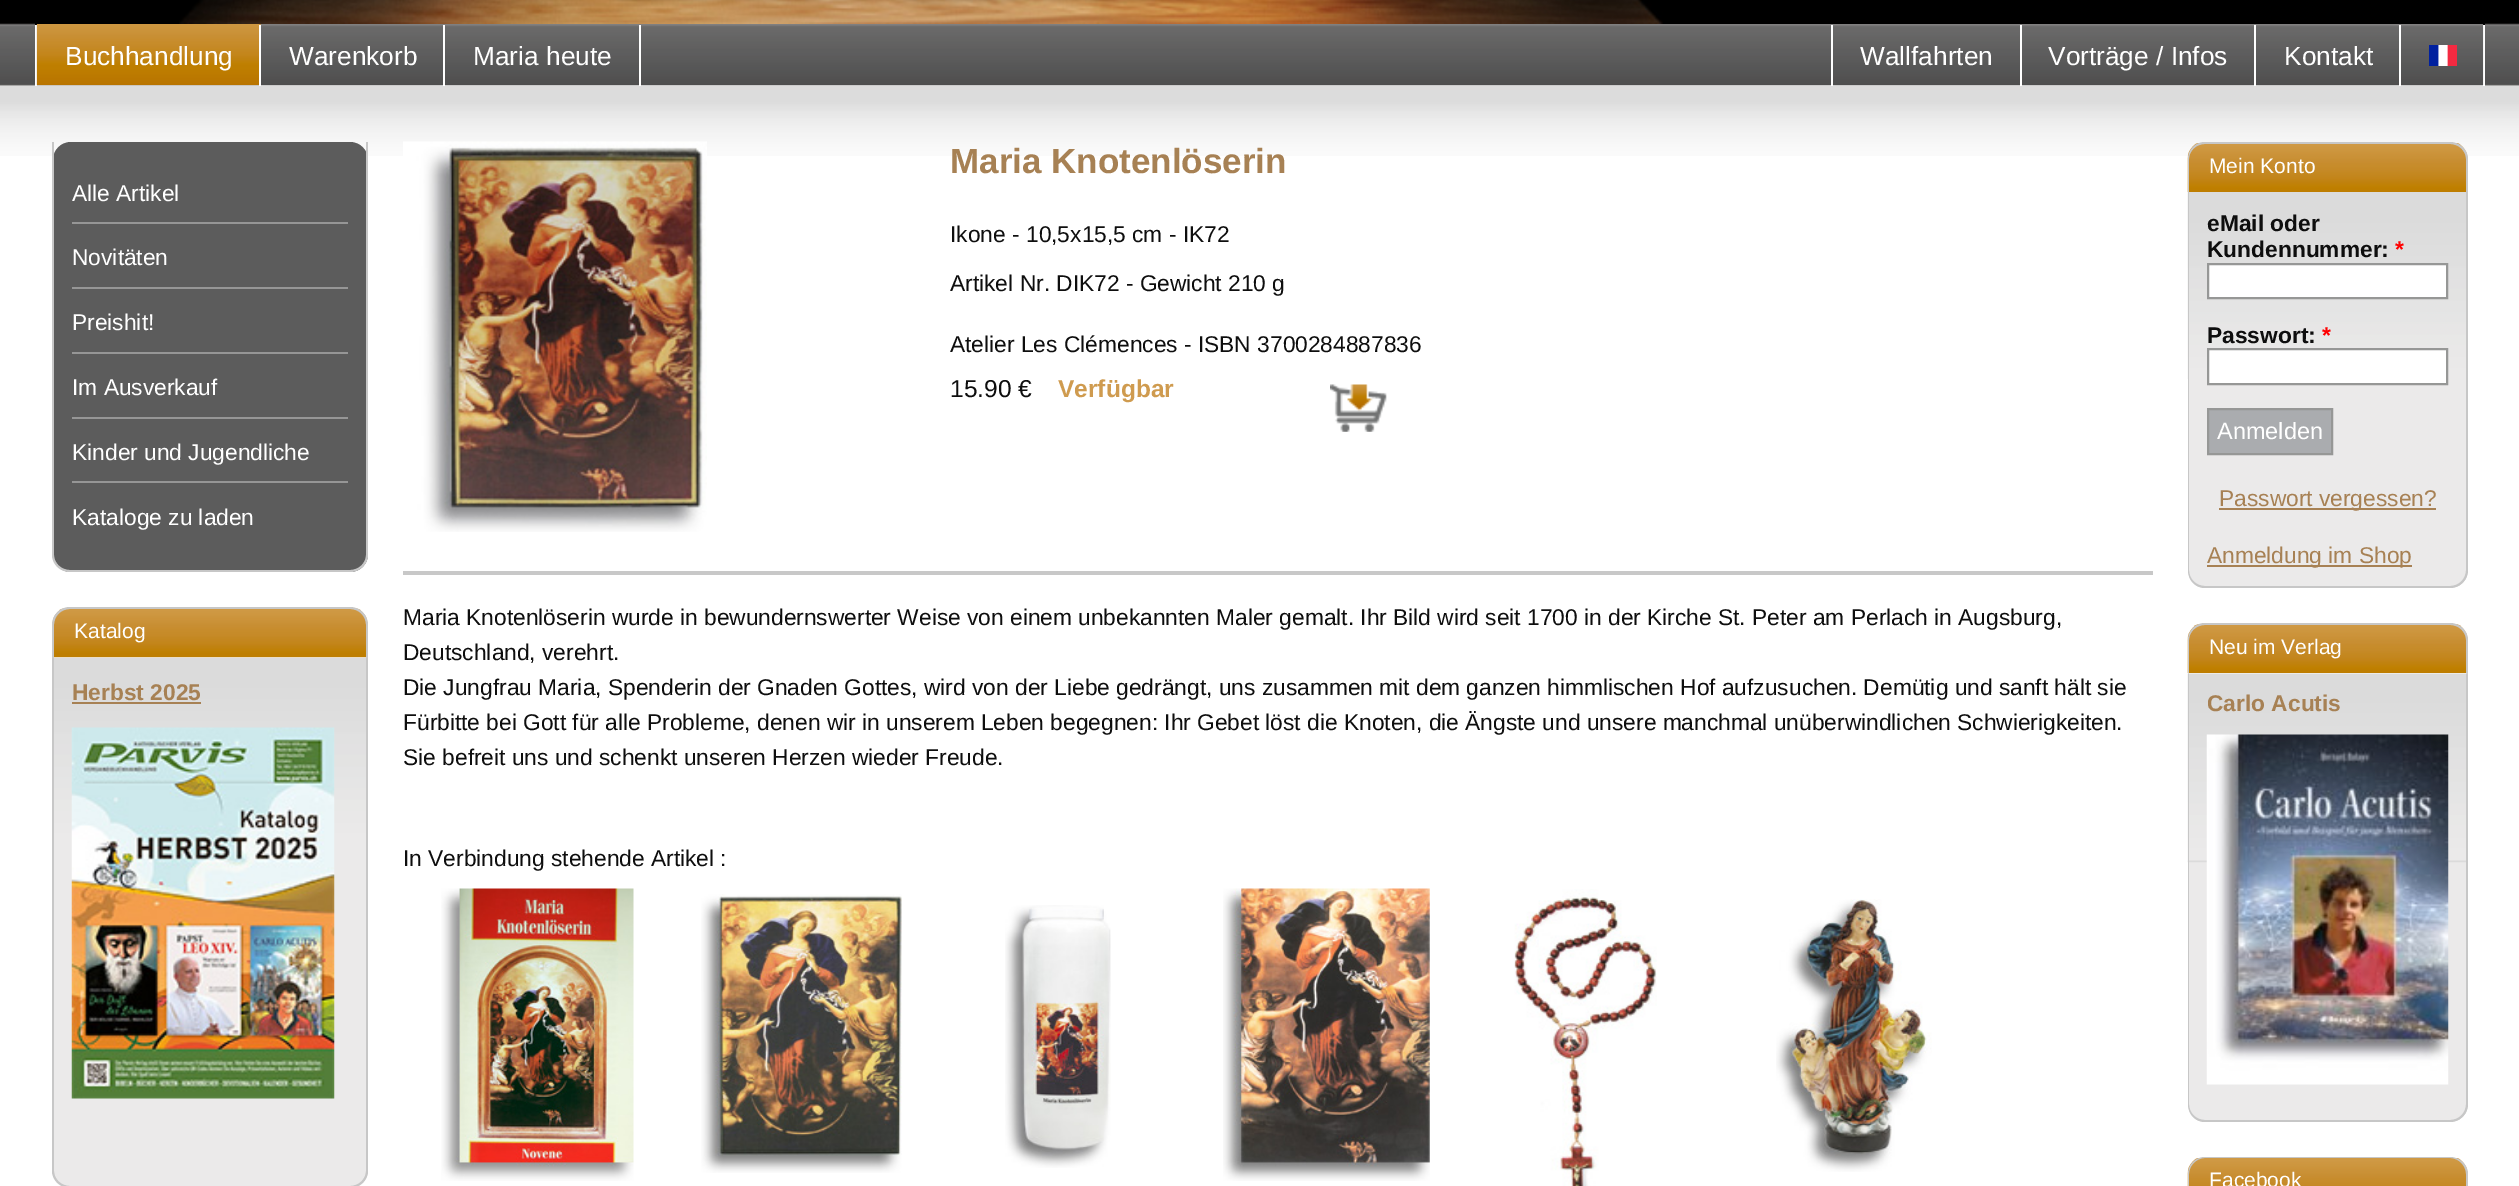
%!PS
<< /PageSize [2519 1186] >> setpagedevice
/mt/moveto load def
/li/lineto load def
/ct/curveto load def
/cp/closepath load def
/fl/fill load def
/st/stroke load def
/gs/gsave load def
/gr/grestore load def
/lw/setlinewidth load def
/co { dup -16 bitshift 255 div exch dup -8 bitshift 255 and 255 div exch 255 and 255 div setrgbcolor } def
/fn { [ exch dup neg 0 0 3 -1 roll 0 0 ] selectfont } def
/tx { co fn moveto show } def
/bx { co rectfill } def
/rr { 5 dict begin { /r /h /w /y /x } { exch def } forall
  x r add y moveto x w add y 2 copy h add r arct x w add y h add x 1 index r arct
  x y h add x y r arct x y 2 copy exch w add exch r arct closepath end } def
/im { 5 dict begin { /h /w /y /x /name } { exch def } forall
  gsave x y translate w h scale
  w h 8 [w 0 0 h 0 0] name (r) file false 3 colorimage grestore end } def
0 1186 translate 1 -1 scale
4 setmiterlimit
0 0 2519 1186 16#FFFFFF bx
(media/1.raw) 0 0 2519 156 im
35 85 2450 71 16#FFFFFF bx
35 23 2450 2 16#000000 bx
(media/2.raw) 179 0 1484 24 im
(media/7.raw) 35 85 2450 71 im
(media/3.raw) 37 85 2446 1 im
2483 25 2 61 16#FFFFFF bx
35 25 2 61 16#FFFFFF bx
(media/4.raw) 36 24 2448 62 im
(media/5.raw) 36 24 225 62 im
259 25 2 61 16#FFFFFF bx
443 25 2 61 16#FFFFFF bx
639 25 2 61 16#FFFFFF bx
1831 25 2 61 16#FFFFFF bx
2020 25 2 61 16#FFFFFF bx
2254 25 2 61 16#FFFFFF bx
2399 25 2 61 16#FFFFFF bx
(media/6.raw) 2429 45 28 21 im
16#5C5C5C co
53 142 315 430 18 rr fl
16#C7C7C7 co
52 142 mt 368 142 li 368 555 li 368 564 360 572 350 572 ct 70 572 li 60 572 52 564 52 555 ct cp 54 142 mt 366 142 li 366 555 li 366 563 359 570 350 570 ct 70 570 li 61 570 54 563 54 555 ct cp eofill
72 222 276 2 16#969696 bx
72 287 276 2 16#969696 bx
72 352 276 2 16#969696 bx
72 417 276 2 16#969696 bx
72 481 276 2 16#969696 bx
(media/8.raw) 52 608 316 50 im
16#C7C7C7 co
70 607 mt 350 607 li 360 607 368 615 368 625 ct 368 658 li 52 658 li 52 625 li 52 615 60 607 70 607 ct cp 70 609 mt 350 609 li 359 609 366 616 366 625 ct 366 658 li 54 658 li 54 625 li 54 616 61 609 70 609 ct cp eofill
16#EBEAEA co
53 658 mt 368 658 li 368 1170 li 368 1180 360 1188 350 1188 ct 71 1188 li 61 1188 53 1180 53 1170 ct cp fl
(media/9.raw) 52 657 316 187 im
16#C7C7C7 co
52 658 mt 368 658 li 368 1171 li 368 1180 360 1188 350 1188 ct 70 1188 li 60 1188 52 1180 52 1171 ct cp 54 658 mt 366 658 li 366 1171 li 366 1179 359 1186 350 1186 ct 70 1186 li 61 1186 54 1179 54 1171 ct cp eofill
72 702 129 2 16#A78154 bx
(media/10.raw) 71 727 264 372 im
403 571 1750 4 16#C8C8C8 bx
(media/11.raw) 403 141 304 391 im
(media/12.raw) 1330 384 57 48 im
(media/13.raw) 441 888 193 293 im
(media/14.raw) 701 894 201 279 im
(media/15.raw) 1005 905 106 263 im
(media/16.raw) 1223 888 207 293 im
(media/17.raw) 1514 889 143 297 im
(media/18.raw) 1776 899 156 273 im
(media/19.raw) 2187 143 281 49 im
16#C7C7C7 co
2205 142 mt 2450 142 li 2460 142 2468 150 2468 159 ct 2468 192 li 2188 192 li 2188 159 li 2188 150 2195 142 2205 142 ct cp 2205 144 mt 2450 144 li 2459 144 2466 151 2466 159 ct 2466 192 li 2189 192 li 2189 159 li 2189 151 2196 144 2205 144 ct cp eofill
16#EBEAEA co
2188 193 mt 2468 193 li 2468 570 li 2468 580 2460 588 2450 588 ct 2206 588 li 2196 588 2188 580 2188 570 ct cp fl
(media/20.raw) 2187 192 279 187 im
16#C7C7C7 co
2188 192 mt 2468 192 li 2468 570 li 2468 580 2460 588 2450 588 ct 2205 588 li 2195 588 2188 580 2188 570 ct cp 2189 192 mt 2466 192 li 2466 570 li 2466 579 2459 586 2450 586 ct 2205 586 li 2196 586 2189 579 2189 570 ct cp eofill
16#FFFFFF co
2208 264 mt 2447 264 li 2447 298 li 2208 298 li cp gs fl gr
16#969796 co
2 lw
st
16#FFFFFF co
2208 349 mt 2447 349 li 2447 384 li 2208 384 li cp gs fl gr
16#969796 co
st
16#AAACAF co
2208 409 mt 2332 409 li 2332 454 li 2208 454 li cp gs fl gr
16#969796 co
st
2219 508 217 2 16#A78154 bx
2207 565 205 2 16#A78154 bx
(media/21.raw) 2187 624 281 50 im
16#C7C7C7 co
2205 623 mt 2450 623 li 2460 623 2468 631 2468 640 ct 2468 674 li 2188 674 li 2188 640 li 2188 631 2195 623 2205 623 ct cp 2205 625 mt 2450 625 li 2459 625 2466 632 2466 640 ct 2466 674 li 2189 674 li 2189 640 li 2189 632 2196 625 2205 625 ct cp eofill
16#EBEAEA co
2188 674 mt 2468 674 li 2468 1104 li 2468 1114 2460 1122 2450 1122 ct 2206 1122 li 2196 1122 2188 1114 2188 1104 ct cp fl
(media/22.raw) 2187 673 281 190 im
16#C7C7C7 co
2188 674 mt 2468 674 li 2468 1104 li 2468 1114 2460 1122 2450 1122 ct 2205 1122 li 2195 1122 2188 1114 2188 1104 ct cp 2189 674 mt 2466 674 li 2466 1104 li 2466 1113 2459 1120 2450 1120 ct 2205 1120 li 2196 1120 2189 1113 2189 1104 ct cp eofill
(media/23.raw) 2206 734 243 351 im
(media/24.raw) 2187 1158 281 28 im
2205 1157 mt 2450 1157 li 2460 1157 2468 1165 2468 1174 ct 2468 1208 li 2188 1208 li 2188 1174 li 2188 1165 2195 1157 2205 1157 ct cp 2205 1158 mt 2450 1158 li 2459 1158 2466 1166 2466 1174 ct 2466 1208 li 2189 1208 li 2189 1174 li 2189 1166 2196 1158 2205 1158 ct cp eofill
(Buchhandlung) 65 65 /LiberationSans-Regular 26.25 16#FFFFFF tx
(Warenkorb) 289 65 /LiberationSans-Regular 26.25 16#FFFFFF tx
(Maria heute) 473 65 /LiberationSans-Regular 26.25 16#FFFFFF tx
(Wallfahrten) 1860 65 /LiberationSans-Regular 26.25 16#FFFFFF tx
(Vorträge / Infos) 2048 65 /LiberationSans-Regular 26.25 16#FFFFFF tx
(Kontakt) 2284 65 /LiberationSans-Regular 26.25 16#FFFFFF tx
(Alle Artikel) 72 201 /LiberationSans-Regular 22.75 16#FFFFFF tx
(Novitäten) 72 265 /LiberationSans-Regular 22.75 16#FFFFFF tx
(Preishit!) 72 330 /LiberationSans-Regular 22.75 16#FFFFFF tx
(Im Ausverkauf) 72 395 /LiberationSans-Regular 22.75 16#FFFFFF tx
(Kinder und Jugendliche) 72 460 /LiberationSans-Regular 22.75 16#FFFFFF tx
(Kataloge zu laden) 72 525 /LiberationSans-Regular 22.75 16#FFFFFF tx
(Katalog) 74 638 /LiberationSans-Regular 21 16#FFFFFF tx
(Herbst 2025) 72 700 /LiberationSans-Bold 22.75 16#A78154 tx
(Maria Knotenlöserin) 950 173 /LiberationSans-Bold 35 16#A78154 tx
(Ikone - 10,5x15,5 cm - IK72) 950 242 /LiberationSans-Regular 22.75 16#0E0E0E tx
(Artikel Nr. DIK72 - Gewicht 210 g) 950 291 /LiberationSans-Regular 22.75 16#0E0E0E tx
(Atelier Les Clémences - ISBN 3700284887836) 950 352 /LiberationSans-Regular 22.75 16#0E0E0E tx
(15.90 €) 950 397 /LiberationSans-Regular 24.5 16#0E0E0E tx
(Verfügbar) 1058 397 /LiberationSans-Bold 24.5 16#CF9B4F tx
(Maria Knotenlöserin wurde in bewundernswerter Weise von einem unbekannten Maler gemalt. Ihr Bild wird seit 1700 in der Kirche St. Peter am Perlach in Augsburg,) 403 625 /LiberationSans-Regular 22.75 16#0E0E0E tx
(Deutschland, verehrt.) 403 660 /LiberationSans-Regular 22.75 16#0E0E0E tx
(Die Jungfrau Maria, Spenderin der Gnaden Gottes, wird von der Liebe gedrängt, uns zusammen mit dem ganzen himmlischen Hof aufzusuchen. Demütig und sanft hält sie) 403 695 /LiberationSans-Regular 22.75 16#0E0E0E tx
(Fürbitte bei Gott für alle Probleme, denen wir in unserem Leben begegnen: Ihr Gebet löst die Knoten, die Ängste und unsere manchmal unüberwindlichen Schwierigkeiten.) 403 730 /LiberationSans-Regular 22.75 16#0E0E0E tx
(Sie befreit uns und schenkt unseren Herzen wieder Freude.) 403 765 /LiberationSans-Regular 22.75 16#0E0E0E tx
(In Verbindung stehende Artikel :) 403 866 /LiberationSans-Regular 22.75 16#0E0E0E tx
(Mein Konto) 2209 173 /LiberationSans-Regular 21 16#FFFFFF tx
(eMail oder) 2207 231 /LiberationSans-Bold 22.75 16#0E0E0E tx
(Kundennummer:) 2207 257 /LiberationSans-Bold 22.75 16#0E0E0E tx
(*) 2395 257 /LiberationSans-Bold 22.75 16#FF0000 tx
(Passwort:) 2207 343 /LiberationSans-Bold 22.75 16#0E0E0E tx
(*) 2322 343 /LiberationSans-Bold 22.75 16#FF0000 tx
(Anmelden) 2217 439 /LiberationSans-Regular 23.5 16#FFFFFF tx
(Passwort vergessen?) 2219 506 /LiberationSans-Regular 22.75 16#A78154 tx
(Anmeldung im Shop) 2207 563 /LiberationSans-Regular 22.75 16#A78154 tx
(Neu im Verlag) 2209 654 /LiberationSans-Regular 21 16#FFFFFF tx
(Carlo Acutis) 2207 711 /LiberationSans-Bold 22.75 16#A78154 tx
(Facebook) 2209 1187 /LiberationSans-Regular 21 16#FFFFFF tx
showpage
